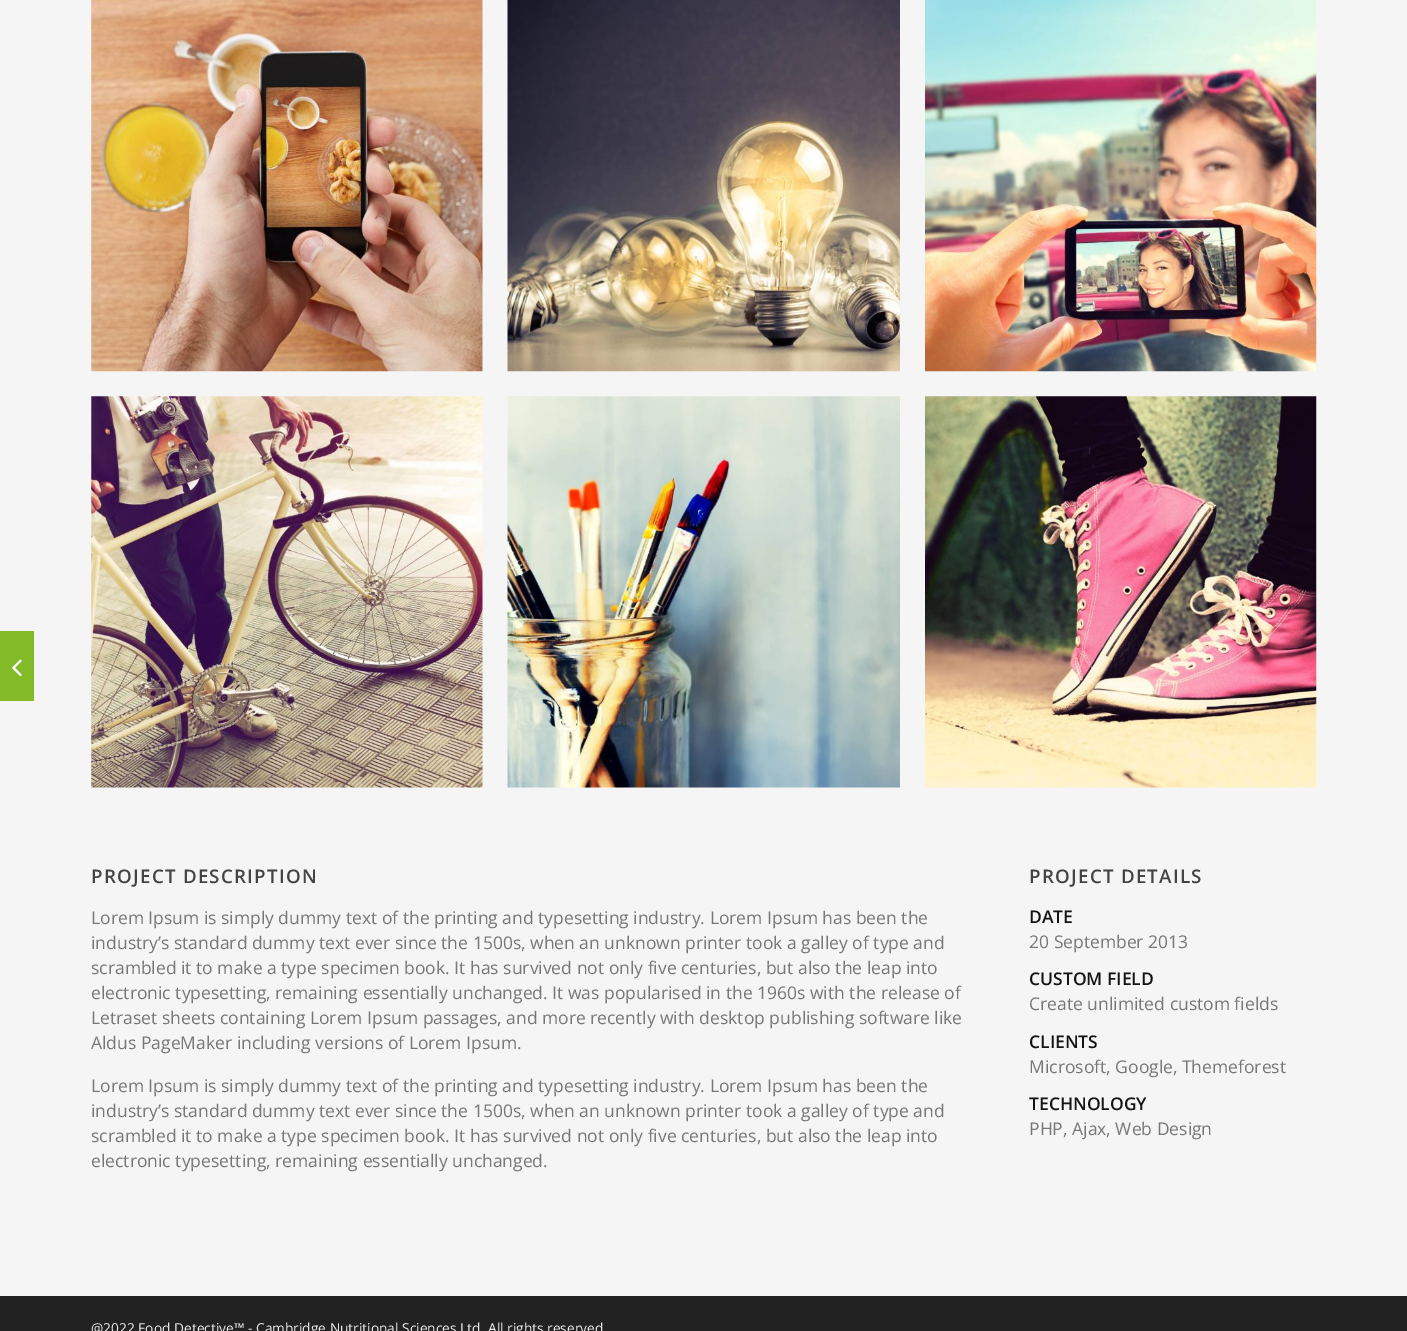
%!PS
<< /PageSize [1407 1331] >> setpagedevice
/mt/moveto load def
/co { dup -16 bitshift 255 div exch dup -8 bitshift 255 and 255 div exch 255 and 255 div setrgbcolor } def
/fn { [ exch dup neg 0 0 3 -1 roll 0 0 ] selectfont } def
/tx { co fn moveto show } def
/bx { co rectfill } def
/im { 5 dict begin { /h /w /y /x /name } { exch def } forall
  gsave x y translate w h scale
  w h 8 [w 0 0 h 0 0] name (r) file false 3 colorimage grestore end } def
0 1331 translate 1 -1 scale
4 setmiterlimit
0 0 1407 1331 16#F5F5F5 bx
0 631 34 70 16#82BB27 bx
(media/1.raw) 12 659 10 18 im
(media/2.raw) 91 0 392 372 im
(media/3.raw) 507 0 393 372 im
(media/4.raw) 925 0 392 372 im
(media/5.raw) 91 396 392 392 im
(media/6.raw) 507 396 393 392 im
(media/7.raw) 925 396 392 392 im
0 1296 1407 35 16#222222 bx
/OpenSans-SemiBold 18.75 fn
16#444444 co
91 883 mt 1.25 0 (PROJECT DESCRIPTION) ashow
(Lorem Ipsum is simply dummy text of the printing and typesetting industry. Lorem Ipsum has been the) 91 924 /OpenSans-Regular 17.5 16#777777 tx
(industry’s standard dummy text ever since the 1500s, when an unknown printer took a galley of type and) 91 949 /OpenSans-Regular 17.5 16#777777 tx
(scrambled it to make a type specimen book. It has survived not only five centuries, but also the leap into) 91 974 /OpenSans-Regular 17.5 16#777777 tx
(electronic typesetting, remaining essentially unchanged. It was popularised in the 1960s with the release of) 91 999 /OpenSans-Regular 17.5 16#777777 tx
(Letraset sheets containing Lorem Ipsum passages, and more recently with desktop publishing software like) 91 1024 /OpenSans-Regular 17.5 16#777777 tx
(Aldus PageMaker including versions of Lorem Ipsum.) 91 1049 /OpenSans-Regular 17.5 16#777777 tx
(Lorem Ipsum is simply dummy text of the printing and typesetting industry. Lorem Ipsum has been the) 91 1092 /OpenSans-Regular 17.5 16#777777 tx
(industry’s standard dummy text ever since the 1500s, when an unknown printer took a galley of type and) 91 1117 /OpenSans-Regular 17.5 16#777777 tx
(scrambled it to make a type specimen book. It has survived not only five centuries, but also the leap into) 91 1142 /OpenSans-Regular 17.5 16#777777 tx
(electronic typesetting, remaining essentially unchanged.) 91 1167 /OpenSans-Regular 17.5 16#777777 tx
/OpenSans-SemiBold 18.75 fn
16#444444 co
1029 883 mt 1.25 0 (PROJECT DETAILS) ashow
(DATE) 1029 923 /OpenSans-SemiBold 17.5 16#141414 tx
(20 September 2013) 1029 948 /OpenSans-Regular 17.5 16#777777 tx
(CUSTOM FIELD) 1029 985 /OpenSans-SemiBold 17.5 16#141414 tx
(Create unlimited custom fields) 1029 1010 /OpenSans-Regular 17.5 16#777777 tx
(CLIENTS) 1029 1048 /OpenSans-SemiBold 17.5 16#141414 tx
(Microsoft, Google, Themeforest) 1029 1073 /OpenSans-Regular 17.5 16#777777 tx
(TECHNOLOGY) 1029 1110 /OpenSans-SemiBold 17.5 16#141414 tx
(PHP, Ajax, Web Design) 1029 1135 /OpenSans-Regular 17.5 16#777777 tx
(@2022 Food Detective™ - Cambridge Nutritional Sciences Ltd, All rights reserved) 91 1333 /OpenSans-Regular 13.75 16#EDEDED tx
showpage
